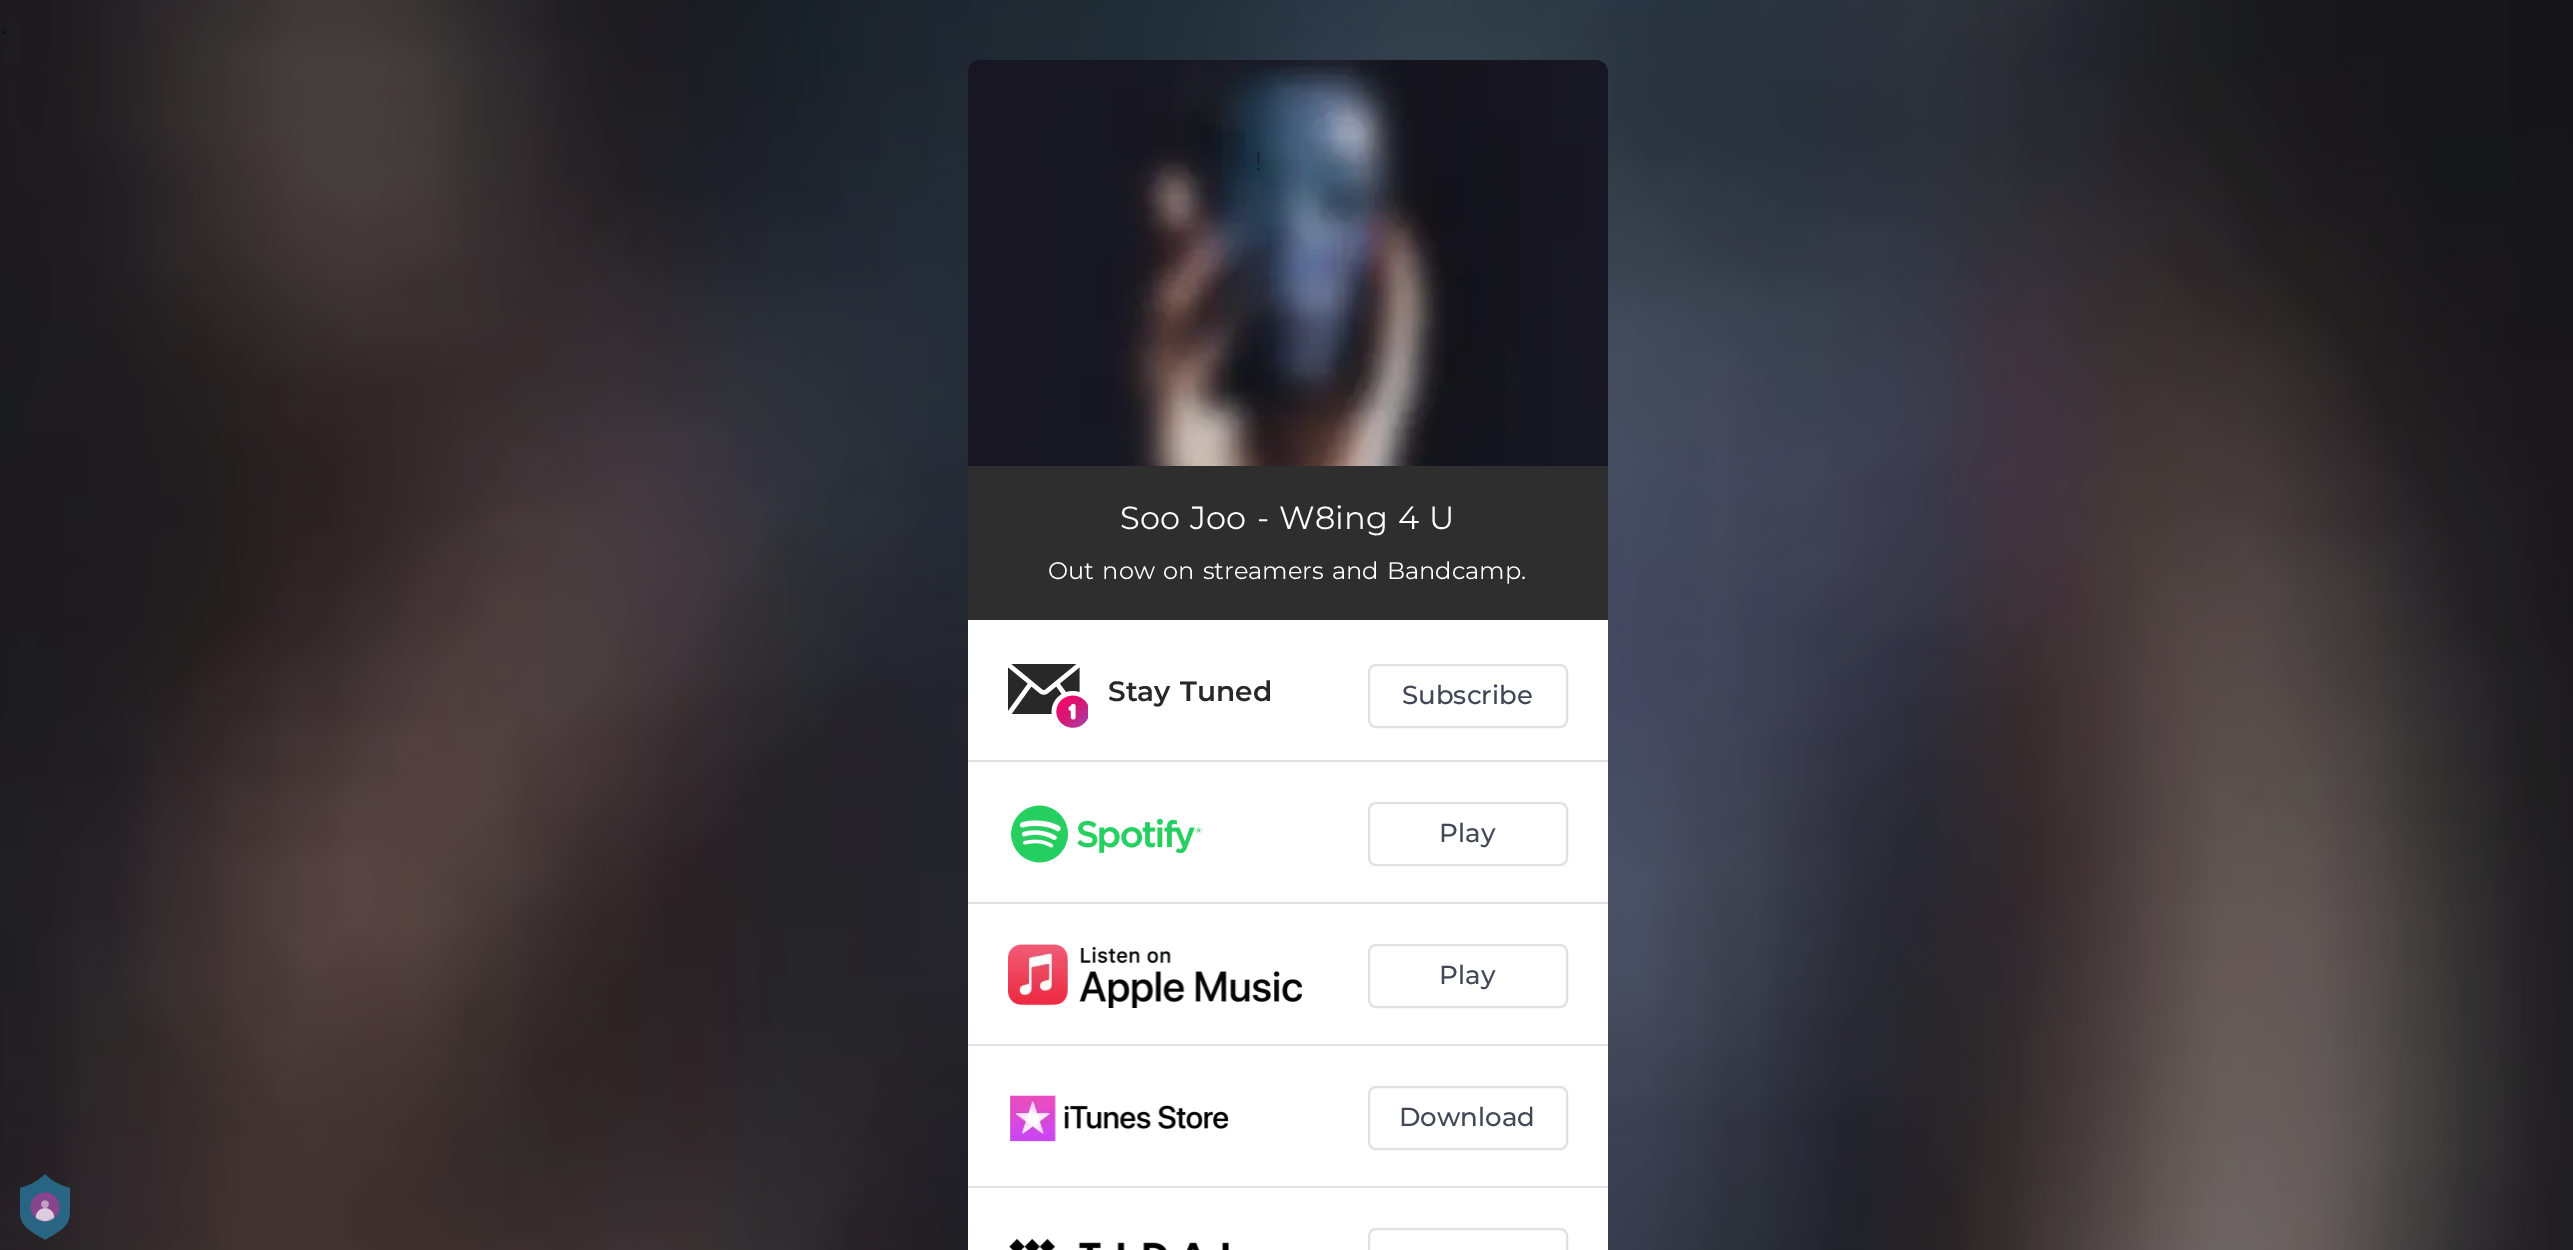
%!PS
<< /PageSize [2573 1250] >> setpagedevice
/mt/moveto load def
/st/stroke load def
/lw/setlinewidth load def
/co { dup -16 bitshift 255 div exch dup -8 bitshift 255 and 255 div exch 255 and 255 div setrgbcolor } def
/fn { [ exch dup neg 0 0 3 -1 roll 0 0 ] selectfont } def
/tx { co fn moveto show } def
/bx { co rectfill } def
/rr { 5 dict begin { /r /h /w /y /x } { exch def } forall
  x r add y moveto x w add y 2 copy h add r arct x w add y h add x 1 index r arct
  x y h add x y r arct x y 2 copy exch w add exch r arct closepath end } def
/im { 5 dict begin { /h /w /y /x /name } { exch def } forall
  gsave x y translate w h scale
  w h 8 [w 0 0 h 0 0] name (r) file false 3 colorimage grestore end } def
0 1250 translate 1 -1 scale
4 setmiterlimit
0 0 2573 1250 16#FFFFFF bx
(media/1.raw) 0 0 2573 1250 im
(media/2.raw) 968 60 640 406 im
968 466 640 154 16#2E2E2E bx
968 620 640 630 16#FFFFFF bx
968 760 640 2 16#E1E1E4 bx
(media/3.raw) 1008 664 80 64 im
2 lw
1369 665 198 62 7 rr st
968 902 640 2 16#E1E1E4 bx
(media/4.raw) 1010 805 192 58 im
1369 803 198 62 7 rr st
968 1044 640 2 16#E1E1E4 bx
(media/5.raw) 1008 944 294 64 im
1369 945 198 62 7 rr st
968 1186 640 2 16#E1E1E4 bx
(media/6.raw) 1010 1095 219 47 im
1369 1087 198 62 7 rr st
(media/7.raw) 1009 1238 221 12 im
1369 1229 198 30 7 rr st
(media/8.raw) 20 1174 50 66 im
/Montserrat-Regular 26 fn
16#1B1F2A co
1255 170 mt 2 0 32 (!) widthshow
/Montserrat-Regular 32 fn
16#FFFFFF co
1120 529 mt 2 0 32 (Soo Joo - W8ing 4 U) widthshow
/Montserrat-Regular 24 fn
1048 579 mt 2 0 32 (Out now on streamers and Bandcamp.) widthshow
/Montserrat-SemiBold 28 fn
16#282828 co
1108 701 mt 2 0 32 (Stay Tuned) widthshow
(Subscribe) 1402 704 /Montserrat-Medium 26 16#414754 tx
(Play) 1439 842 /Montserrat-Medium 26 16#414754 tx
(Play) 1439 984 /Montserrat-Medium 26 16#414754 tx
(Download) 1399 1126 /Montserrat-Medium 26 16#414754 tx
showpage
